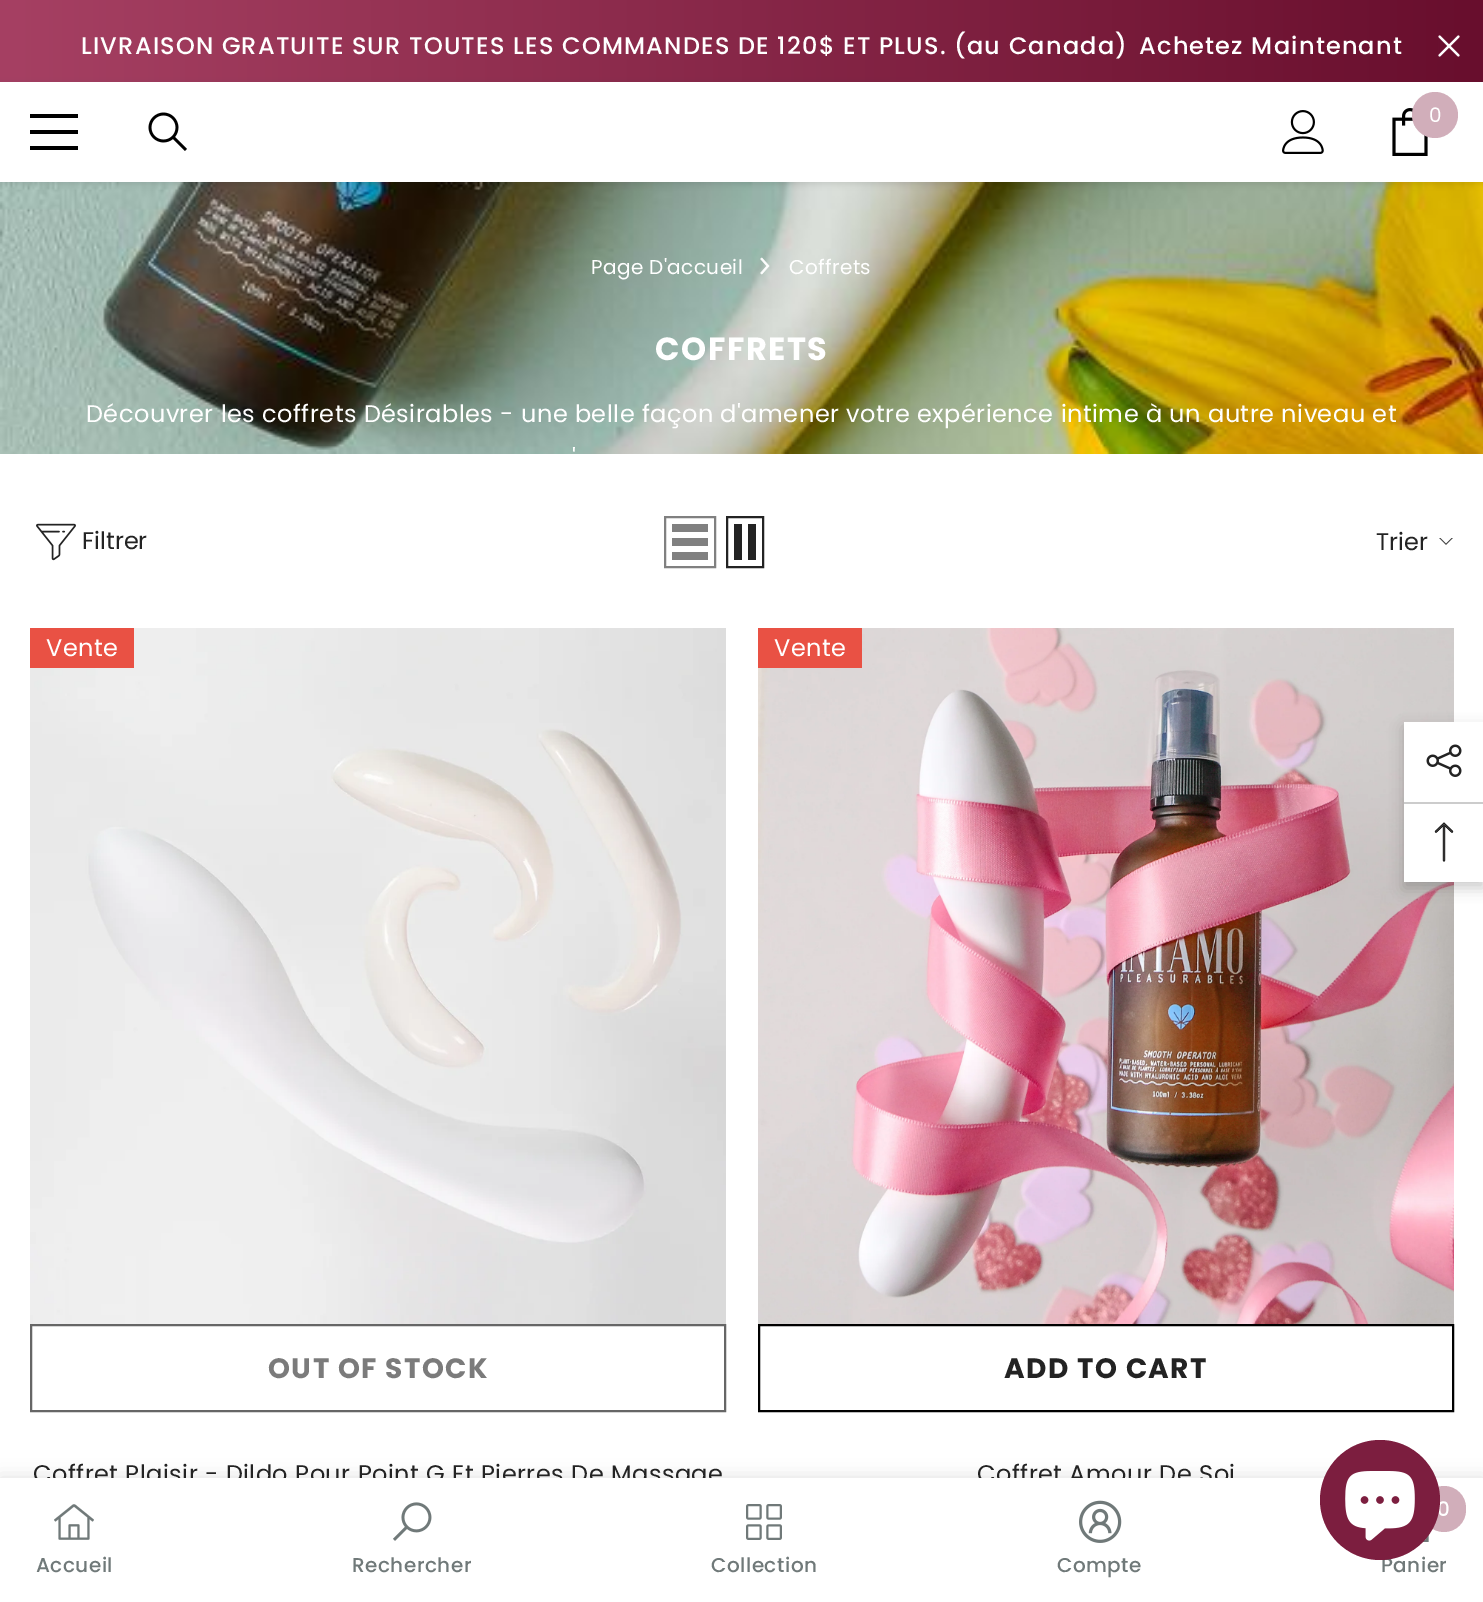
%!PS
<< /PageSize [1483 1602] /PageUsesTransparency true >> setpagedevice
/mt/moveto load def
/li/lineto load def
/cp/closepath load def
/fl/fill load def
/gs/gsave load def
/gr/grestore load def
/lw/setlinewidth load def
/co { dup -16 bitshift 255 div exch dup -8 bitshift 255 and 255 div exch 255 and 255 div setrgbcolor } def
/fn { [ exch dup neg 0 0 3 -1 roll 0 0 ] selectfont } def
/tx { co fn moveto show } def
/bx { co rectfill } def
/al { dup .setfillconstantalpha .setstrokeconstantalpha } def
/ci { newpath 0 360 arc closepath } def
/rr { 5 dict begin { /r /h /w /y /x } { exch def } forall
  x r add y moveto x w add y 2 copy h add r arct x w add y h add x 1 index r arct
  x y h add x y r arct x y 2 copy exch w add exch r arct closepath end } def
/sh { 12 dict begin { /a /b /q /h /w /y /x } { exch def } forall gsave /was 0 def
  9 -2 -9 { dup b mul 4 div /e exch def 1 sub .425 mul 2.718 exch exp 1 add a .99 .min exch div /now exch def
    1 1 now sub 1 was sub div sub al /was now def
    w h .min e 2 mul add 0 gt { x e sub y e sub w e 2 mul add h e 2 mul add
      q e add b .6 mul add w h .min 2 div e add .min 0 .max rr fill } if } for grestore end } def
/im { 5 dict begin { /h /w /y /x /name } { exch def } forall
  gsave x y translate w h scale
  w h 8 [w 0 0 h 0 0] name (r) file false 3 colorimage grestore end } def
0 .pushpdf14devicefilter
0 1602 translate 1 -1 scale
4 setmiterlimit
0 0 1483 1602 16#FFFFFF bx
gs 0 0 mt 1483 0 li 1483 82 li 0 82 li cp clip newpath
<< /ShadingType 2 /ColorSpace /DeviceRGB /Coords [0 41 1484 41] /Extend [true true] /Function << /FunctionType 2 /Domain [0 1] /C0 [.651 .251 .388] /C1 [.408 .055 .176] /N 1 >> >> shfill gr
(media/1.raw) 1438 35 22 22 im
(media/5.raw) 0 182 1483 272 im
gs
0 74 mt 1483 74 li 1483 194 li 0 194 li cp 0 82 mt 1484 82 li 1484 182 li 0 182 li cp eoclip newpath
16#000000 co
0 84 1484 100 0 3 .1 sh
gr
30 130 48 4 16#000000 bx
30 114 48 4 16#000000 bx
30 146 48 4 16#000000 bx
(media/2.raw) 148 112 39 39 im
(media/3.raw) 1282 110 42 44 im
(media/4.raw) 1392 108 36 48 im
16#D1AEBA co
1435 115 23 ci fl
(media/6.raw) 760 257 10 18 im
(media/7.raw) 36 523 40 38 im
16#808080 co
2 lw
665 517 50 50 rectstroke
672 552 36 8 16#808080 bx
672 538 36 8 16#808080 bx
672 524 36 8 16#808080 bx
16#232323 co
727 517 36 50 rectstroke
748 524 8 36 16#232323 bx
734 524 8 36 16#232323 bx
(media/8.raw) 1439 538 14 7 im
(media/9.raw) 30 628 696 696 im
30 628 104 40 16#E95144 bx
16#666666 co
31 1325 694 86 rectstroke
(media/10.raw) 758 628 696 696 im
758 628 104 40 16#E95144 bx
16#000000 co
759 1325 694 86 rectstroke
0 1478 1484 124 0 9 .12 sh
1404 728 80 160 0 7 .2 sh
1404 722 79 160 16#FFFFFF bx
(media/16.raw) 1426 744 36 33 im
1404 802 79 2 16#CCCCCC bx
(media/17.raw) 1434 822 20 40 im
/Poppins-Medium 24 fn
16#FFFFFF co
81 54 mt 1.2 0 (LIVRAISON GRATUITE SUR TOUTES LES COMMANDES DE 120$ ET PLUS. \(au Canada\)) ashow
1139 54 mt 1.2 0 (Achetez Maintenant) ashow
/Poppins-Regular 20 fn
1429 122 mt .4 0 (0) ashow
591 274 mt .4 0 (Page D'accueil) ashow
789 274 mt .4 0 (Coffrets) ashow
/Poppins-Bold 32 fn
655 360 mt 1.5 0 (COFFRETS) ashow
/Poppins-Regular 24 fn
86 422 mt .48 0 (Découvrer les coffrets Désirables - une belle façon d'amener votre expérience intime à un autre niveau et) ashow
572 466 mt .48 0 (') ashow
(Filtrer) 82 549 /Poppins-Regular 24 16#232323 tx
(Trier) 1376 550 /Poppins-Regular 24 16#232323 tx
16#FFFFFF co
46 656 mt .48 0 (Vente) ashow
/Poppins-Bold 28 fn
16#7B7B7B co
268 1378 mt 1.4 0 (OUT OF STOCK) ashow
/Poppins-Regular 24 fn
16#232323 co
33 1482 mt .48 0 (Coffret Plaisir - Dildo Pour Point G Et Pierres De Massage) ashow
16#FFFFFF co
774 656 mt .48 0 (Vente) ashow
/Poppins-Bold 28 fn
16#232323 co
1004 1378 mt 1.4 0 (ADD TO CART) ashow
/Poppins-Regular 24 fn
977 1482 mt .48 0 (Coffret Amour De Soi) ashow
0 1478 1483 124 16#FFFFFF bx
(media/11.raw) 54 1504 40 36 im
/Poppins-Medium 20 fn
16#707979 co
36 1572 mt .48 0 (Accueil) ashow
(media/12.raw) 393 1502 39 39 im
352 1572 mt .48 0 (Rechercher) ashow
(media/13.raw) 746 1504 36 36 im
711 1572 mt .48 0 (Collection) ashow
(media/14.raw) 1079 1500 43 43 im
1057 1572 mt .48 0 (Compte) ashow
16#D1AEBA co
1422 1486 44 46 22 rr fl
16#FFFFFF co
1437 1516 mt .4 0 (0) ashow
(media/15.raw) 1422 1534 7 8 im
16#707979 co
1381 1572 mt .48 0 (Panier) ashow
16#7C1E3F co
1380 1500 60 ci fl
(media/18.raw) 1345 1471 70 70 im
.poppdf14devicefilter showpage
